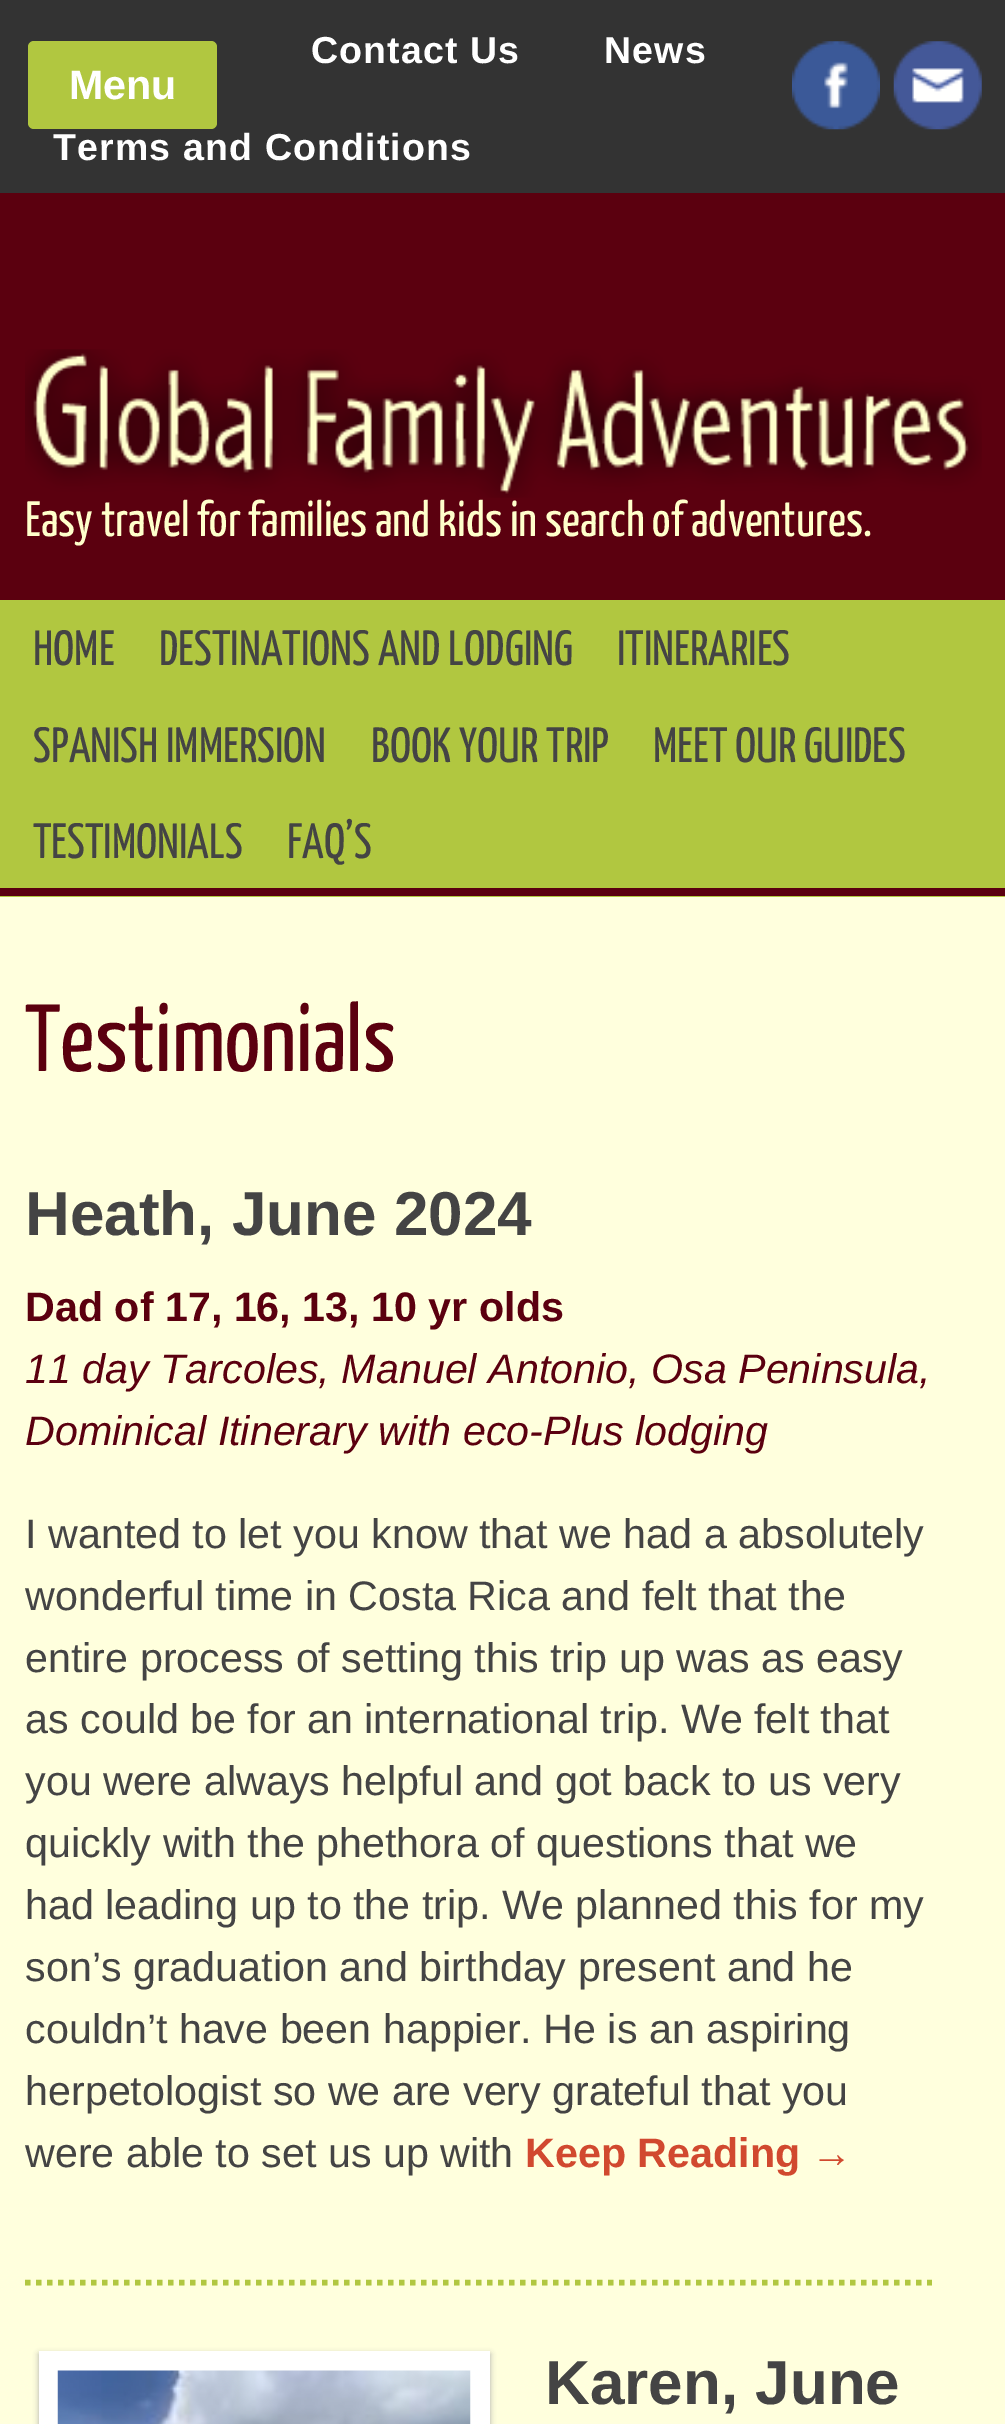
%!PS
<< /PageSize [1005 2424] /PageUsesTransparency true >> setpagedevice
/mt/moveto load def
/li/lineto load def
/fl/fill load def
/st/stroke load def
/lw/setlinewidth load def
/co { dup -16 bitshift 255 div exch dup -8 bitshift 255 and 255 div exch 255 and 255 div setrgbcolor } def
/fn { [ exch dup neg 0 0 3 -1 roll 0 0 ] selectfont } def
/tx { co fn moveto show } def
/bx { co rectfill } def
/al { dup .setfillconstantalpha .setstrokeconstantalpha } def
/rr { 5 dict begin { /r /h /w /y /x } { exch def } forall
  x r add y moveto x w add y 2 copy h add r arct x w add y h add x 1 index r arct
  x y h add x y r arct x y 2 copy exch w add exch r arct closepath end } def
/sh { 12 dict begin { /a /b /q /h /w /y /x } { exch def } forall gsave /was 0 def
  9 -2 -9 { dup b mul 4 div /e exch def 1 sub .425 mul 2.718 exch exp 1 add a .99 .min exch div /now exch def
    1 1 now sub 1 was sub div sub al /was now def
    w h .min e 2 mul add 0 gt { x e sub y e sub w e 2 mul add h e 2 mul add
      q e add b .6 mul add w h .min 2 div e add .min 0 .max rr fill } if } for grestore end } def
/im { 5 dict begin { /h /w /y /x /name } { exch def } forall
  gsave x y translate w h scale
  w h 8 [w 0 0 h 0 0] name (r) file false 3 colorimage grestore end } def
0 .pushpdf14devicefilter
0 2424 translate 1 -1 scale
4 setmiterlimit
0 0 1005 2424 16#5B000F bx
0 0 1005 193 16#333333 bx
16#B1C740 co
28 41 189 88 6 rr fl
(media/1.raw) 792 41 88 89 im
(media/2.raw) 893 41 89 89 im
(media/3.raw) 25 349 957 149 im
0 600 1005 297 16#B1C740 bx
0 888 1005 8 16#5B000F bx
0 897 1005 1527 16#FFFFDD bx
16#B1C740 co
5.5 lw
[5.5 5.5] 0 setdash
25 2282.5 mt 932 2282.5 li st
16#AAAAAA co
39 2354 451 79 0 3 1 sh
39 2351 451 73 16#FFFFFF bx
(media/4.raw) 57 2370 414 54 im
/LiberationSans-Bold 37.6 fn
311 63 mt 1.1 0 (Contact Us) ashow
604 63 mt 1.1 0 (News) ashow
53 160 mt 1.1 0 (Terms and Conditions) ashow
(Menu) 69 99 /LiberationSans-Bold 41.25 16#FFFFFF tx
(Easy travel for families and kids in search of adventures.) 25 536 /YanoneKaffeesatz-Regular 49.5 16#FFFFCB tx
(HOME) 33 665 /YanoneKaffeesatz-Regular 49.5 16#444444 tx
(DESTINATIONS AND LODGING) 159 665 /YanoneKaffeesatz-Regular 49.5 16#444444 tx
(ITINERARIES) 617 665 /YanoneKaffeesatz-Regular 49.5 16#444444 tx
(SPANISH IMMERSION) 33 762 /YanoneKaffeesatz-Regular 49.5 16#444444 tx
(BOOK YOUR TRIP) 371 762 /YanoneKaffeesatz-Regular 49.5 16#444444 tx
(MEET OUR GUIDES) 653 762 /YanoneKaffeesatz-Regular 49.5 16#444444 tx
(TESTIMONIALS) 33 858 /YanoneKaffeesatz-Regular 49.5 16#444444 tx
(FAQ’S) 287 858 /YanoneKaffeesatz-Regular 49.5 16#444444 tx
(Testimonials) 25 1071 /YanoneKaffeesatz-Regular 95 16#5B000F tx
(Heath, June 2024) 25 1235 /LiberationSans-Bold 62 16#444444 tx
(Dad of 17, 16, 13, 10 yr olds) 25 1321 /LiberationSans-Bold 41.25 16#5B000F tx
(11 day Tarcoles, Manuel Antonio, Osa Peninsula,) 25 1383 /LiberationSans-Italic 41.25 16#5B000F tx
(Dominical Itinerary with eco-Plus lodging) 25 1445 /LiberationSans-Italic 41.25 16#5B000F tx
(I wanted to let you know that we had a absolutely) 25 1548 /LiberationSans-Regular 41.25 16#444444 tx
(wonderful time in Costa Rica and felt that the) 25 1610 /LiberationSans-Regular 41.25 16#444444 tx
(entire process of setting this trip up was as easy) 25 1672 /LiberationSans-Regular 41.25 16#444444 tx
(as could be for an international trip. We felt that) 25 1733 /LiberationSans-Regular 41.25 16#444444 tx
(you were always helpful and got back to us very) 25 1795 /LiberationSans-Regular 41.25 16#444444 tx
(quickly with the phethora of questions that we) 25 1857 /LiberationSans-Regular 41.25 16#444444 tx
(had leading up to the trip. We planned this for my) 25 1919 /LiberationSans-Regular 41.25 16#444444 tx
(son’s graduation and birthday present and he) 25 1981 /LiberationSans-Regular 41.25 16#444444 tx
(couldn’t have been happier. He is an aspiring) 25 2043 /LiberationSans-Regular 41.25 16#444444 tx
(herpetologist so we are very grateful that you) 25 2105 /LiberationSans-Regular 41.25 16#444444 tx
(were able to set us up with) 25 2167 /LiberationSans-Regular 41.25 16#444444 tx
(Keep Reading →) 525 2167 /LiberationSans-Bold 41.25 16#D1492F tx
(Karen, June) 545 2404 /LiberationSans-Bold 62 16#444444 tx
.poppdf14devicefilter showpage
